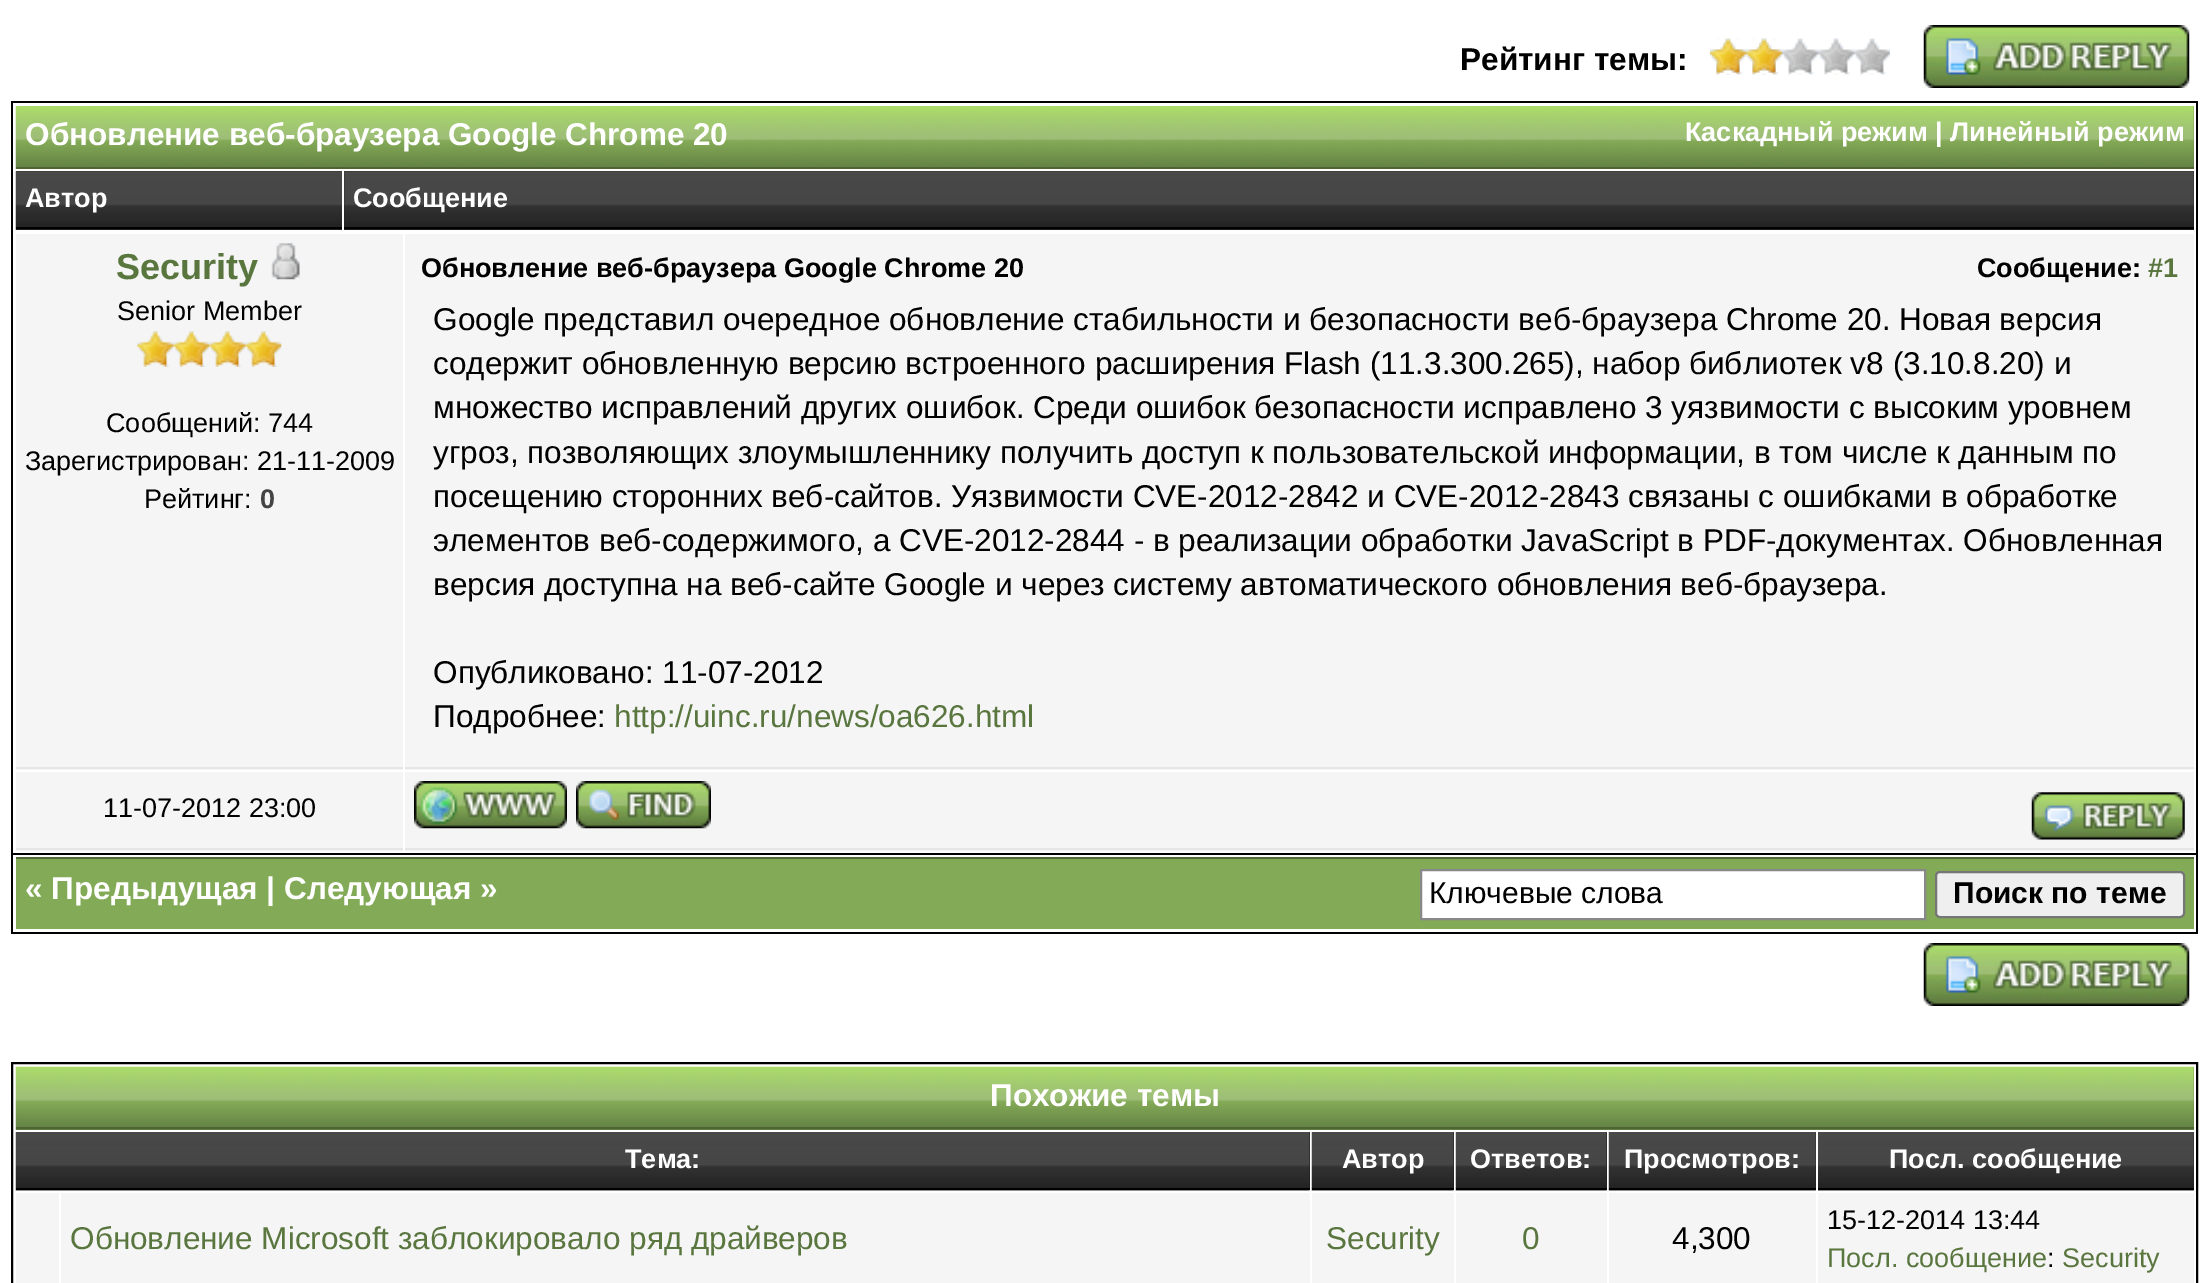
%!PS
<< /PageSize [2209 1283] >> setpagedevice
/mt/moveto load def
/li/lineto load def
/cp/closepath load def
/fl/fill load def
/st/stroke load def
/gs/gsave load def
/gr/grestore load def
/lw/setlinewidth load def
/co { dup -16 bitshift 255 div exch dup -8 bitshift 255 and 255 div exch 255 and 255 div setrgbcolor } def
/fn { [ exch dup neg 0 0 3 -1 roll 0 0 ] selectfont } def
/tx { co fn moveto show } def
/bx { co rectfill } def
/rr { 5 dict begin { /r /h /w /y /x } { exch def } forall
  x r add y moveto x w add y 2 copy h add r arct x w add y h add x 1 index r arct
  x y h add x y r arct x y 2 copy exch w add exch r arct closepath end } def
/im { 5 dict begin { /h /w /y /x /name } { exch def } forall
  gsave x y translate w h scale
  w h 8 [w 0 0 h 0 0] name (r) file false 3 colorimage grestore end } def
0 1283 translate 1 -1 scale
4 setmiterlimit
0 0 2209 1283 16#FFFFFF bx
(media/1.raw) 1710 38 180 37 im
(media/2.raw) 1710 38 72 37 im
(media/3.raw) 1923 25 267 63 im
11 101 2187 2 16#000000 bx
2196 101 2 833 16#000000 bx
11 101 2 131 16#000000 bx
(media/4.raw) 15 106 2179 63 im
16 167 2178 2 16#4E6533 bx
(media/5.raw) 15 171 327 59 im
16 227 326 2 16#000000 bx
344 171 1850 59 16#1B1C1B bx
(media/6.raw) 344 171 1850 56 im
344 227 1850 2 16#000000 bx
11 853 2187 2 16#000000 bx
11 232 2 623 16#000000 bx
16 234 387 536 16#F5F5F5 bx
16 767 387 2 16#E6E6E6 bx
(media/7.raw) 271 243 29 37 im
(media/8.raw) 137 331 37 36 im
(media/9.raw) 173 331 37 36 im
(media/9.raw) 209 331 37 36 im
(media/9.raw) 245 331 37 36 im
405 234 1789 536 16#F5F5F5 bx
405 767 1789 2 16#E6E6E6 bx
16 772 387 79 16#F5F5F5 bx
16 848 387 2 16#E6E6E6 bx
405 772 1789 79 16#F5F5F5 bx
405 848 1789 2 16#E6E6E6 bx
(media/10.raw) 414 781 153 48 im
(media/11.raw) 576 781 135 48 im
(media/12.raw) 2031 792 154 48 im
11 932 2187 2 16#000000 bx
11 855 2 79 16#000000 bx
16 859 2178 70 16#83AA57 bx
16 857 2178 2 16#536C37 bx
16#FFFFFF co
1421 870 mt 1925 870 li 1925 919 li 1421 919 li cp gs fl gr
16#888888 co
2 lw
st
16#EFEFEF co
1936 872 248 45 4 rr gs fl gr
16#767676 co
st
(media/3.raw) 1923 943 267 63 im
16#000000 co
12 1063 2185 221 rectstroke
16 1067 2178 63 16#5D7A41 bx
(media/13.raw) 15 1066 2179 64 im
16 1127 2178 2 16#4E6533 bx
1309 1132 1 56 16#1B1C1B bx
(media/14.raw) 15 1132 1295 59 im
16 1188 1294 2 16#000000 bx
1453 1132 1 56 16#1B1C1B bx
(media/15.raw) 1311 1132 143 59 im
1312 1188 142 2 16#000000 bx
1606 1132 1 56 16#1B1C1B bx
(media/16.raw) 1455 1132 152 59 im
1456 1188 151 2 16#000000 bx
(media/17.raw) 1608 1132 208 59 im
1609 1188 207 2 16#000000 bx
(media/18.raw) 1818 1132 376 59 im
1818 1188 376 2 16#000000 bx
16 1193 43 90 16#F5F5F5 bx
61 1193 1249 90 16#F5F5F5 bx
1312 1193 142 90 16#F5F5F5 bx
1456 1193 151 90 16#F5F5F5 bx
1609 1193 207 90 16#F5F5F5 bx
1818 1193 376 90 16#F5F5F5 bx
(Рейтинг темы:) 1460 70 /LiberationSans-Bold 31.5 16#000000 tx
(Обновление веб-браузера Google Chrome 20) 25 145 /LiberationSans-Bold 31.5 16#FFFFFF tx
(Каскадный режим | Линейный режим) 1685 141 /LiberationSans-Bold 27 16#FFFFFF tx
(Автор) 25 207 /LiberationSans-Bold 27 16#FFFFFF tx
(Сообщение) 353 207 /LiberationSans-Bold 27 16#FFFFFF tx
(Security) 116 279 /LiberationSans-Bold 36 16#5A763F tx
(Senior Member) 117 320 /LiberationSans-Regular 27 16#000000 tx
(Сообщений: 744) 106 432 /LiberationSans-Regular 27 16#000000 tx
(Зарегистрирован: 21-11-2009) 25 470 /LiberationSans-Regular 27 16#000000 tx
(Рейтинг:) 144 508 /LiberationSans-Regular 27 16#000000 tx
(0) 260 508 /LiberationSans-Bold 27 16#444444 tx
(Обновление веб-браузера Google Chrome 20) 421 277 /LiberationSans-Bold 27 16#000000 tx
(Сообщение:) 1977 277 /LiberationSans-Bold 27 16#000000 tx
(#1) 2148 277 /LiberationSans-Bold 27 16#5A763F tx
(Google представил очередное обновление стабильности и безопасности веб-браузера Chrome 20. Новая версия) 433 330 /LiberationSans-Regular 31.5 16#000000 tx
(содержит обновленную версию встроенного расширения Flash \(11.3.300.265\), набор библиотек v8 \(3.10.8.20\) и) 433 374 /LiberationSans-Regular 31.5 16#000000 tx
(множество исправлений других ошибок. Среди ошибок безопасности исправлено 3 уязвимости с высоким уровнем) 433 418 /LiberationSans-Regular 31.5 16#000000 tx
(угроз, позволяющих злоумышленнику получить доступ к пользовательской информации, в том числе к данным по) 433 463 /LiberationSans-Regular 31.5 16#000000 tx
(посещению сторонних веб-сайтов. Уязвимости CVE-2012-2842 и CVE-2012-2843 связаны с ошибками в обработке) 433 507 /LiberationSans-Regular 31.5 16#000000 tx
(элементов веб-содержимого, а CVE-2012-2844 - в реализации обработки JavaScript в PDF-документах. Обновленная) 433 551 /LiberationSans-Regular 31.5 16#000000 tx
(версия доступна на веб-сайте Google и через систему автоматического обновления веб-браузера.) 433 595 /LiberationSans-Regular 31.5 16#000000 tx
(Опубликовано: 11-07-2012) 433 683 /LiberationSans-Regular 31.5 16#000000 tx
(Подробнее:) 433 727 /LiberationSans-Regular 31.5 16#000000 tx
(http://uinc.ru/news/oa626.html) 614 727 /LiberationSans-Regular 31.5 16#5A763F tx
(11-07-2012 23:00) 103 817 /LiberationSans-Regular 27 16#000000 tx
(« Предыдущая | Следующая ») 25 899 /LiberationSans-Bold 31.5 16#FFFFFF tx
(Ключевые слова) 1429 903 /LiberationSans-Regular 30 16#000000 tx
(Поиск по теме) 1953 903 /LiberationSans-Bold 30 16#000000 tx
(Похожие темы) 990 1106 /LiberationSans-Bold 31.5 16#FFFFFF tx
(Тема:) 625 1168 /LiberationSans-Bold 27 16#FFFFFF tx
(Автор) 1342 1168 /LiberationSans-Bold 27 16#FFFFFF tx
(Ответов:) 1470 1168 /LiberationSans-Bold 27 16#FFFFFF tx
(Просмотров:) 1624 1168 /LiberationSans-Bold 27 16#FFFFFF tx
(Посл. сообщение) 1889 1168 /LiberationSans-Bold 27 16#FFFFFF tx
(Обновление Microsoft заблокировало ряд драйверов) 70 1249 /LiberationSans-Regular 31.5 16#5A763F tx
(Security) 1326 1249 /LiberationSans-Regular 31.5 16#5A763F tx
(0) 1522 1249 /LiberationSans-Regular 31.5 16#5A763F tx
(4,300) 1672 1249 /LiberationSans-Regular 31.5 16#000000 tx
(15-12-2014 13:44) 1827 1229 /LiberationSans-Regular 27 16#000000 tx
(Посл. сообщение) 1827 1267 /LiberationSans-Regular 27 16#5A763F tx
(:) 2047 1267 /LiberationSans-Regular 27 16#000000 tx
(Security) 2062 1267 /LiberationSans-Regular 27 16#5A763F tx
showpage
